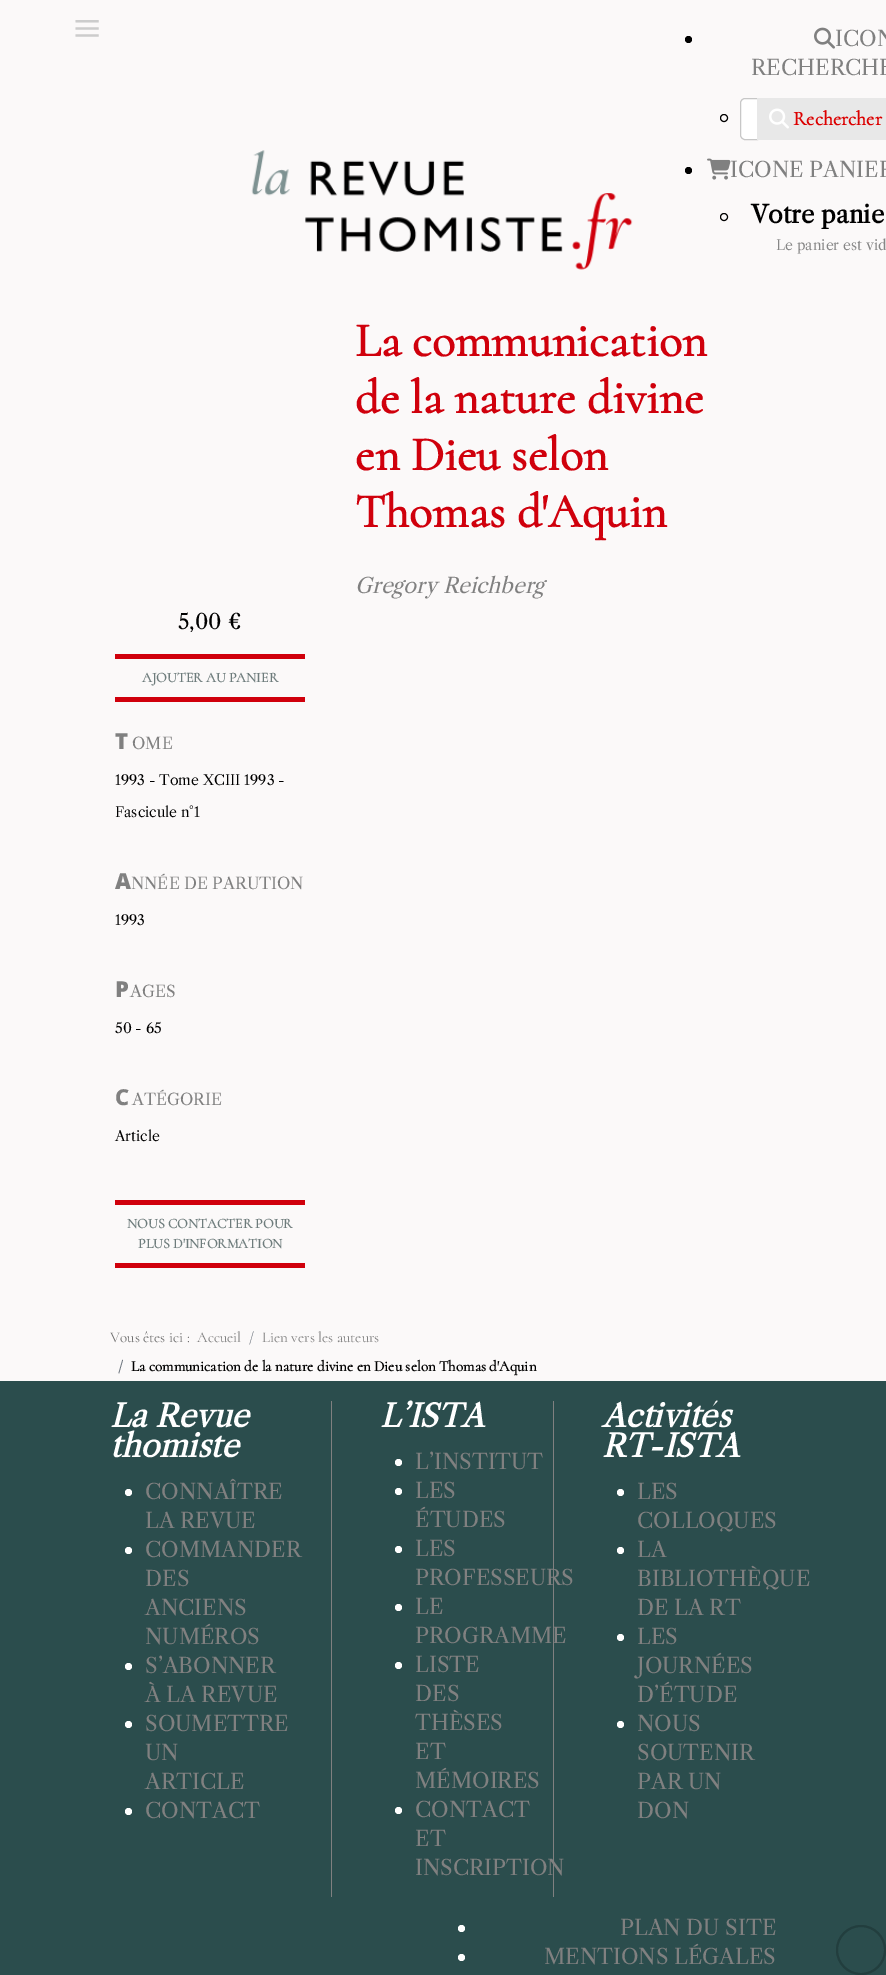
%!PS
<< /PageSize [886 1975] >> setpagedevice
/mt/moveto load def
/li/lineto load def
/ct/curveto load def
/cp/closepath load def
/fl/fill load def
/st/stroke load def
/gs/gsave load def
/gr/grestore load def
/lw/setlinewidth load def
/co { dup -16 bitshift 255 div exch dup -8 bitshift 255 and 255 div exch 255 and 255 div setrgbcolor } def
/fn { [ exch dup neg 0 0 3 -1 roll 0 0 ] selectfont } def
/tx { co fn moveto show } def
/bx { co rectfill } def
/ci { newpath 0 360 arc closepath } def
/im { 5 dict begin { /h /w /y /x /name } { exch def } forall
  gsave x y translate w h scale
  w h 8 [w 0 0 h 0 0] name (r) file false 3 colorimage grestore end } def
0 1975 translate 1 -1 scale
4 setmiterlimit
0 0 886 1975 16#FBF9F9 bx
16#000000 co
688.5 39.5 3.5 ci fl
(media/1.raw) 814 27 21 22 im
724 118 3.5 ci st
16#FFFFFF co
745 98.5 mt 757.5 98.5 li 757.5 139.5 li 745 139.5 li 742.5 139.5 740.5 137.5 740.5 135 ct 740.5 103 li 740.5 100.5 742.5 98.5 745 98.5 ct cp gs fl gr
16#C7C7C7 co
st
757 98 129 42 16#E8E8E8 bx
(media/2.raw) 769 108 20 21 im
16#000000 co
688.5 170.5 3.5 ci fl
(media/3.raw) 707 158 24 22 im
724 217 3.5 ci st
(media/4.raw) 251 150 382 120 im
115 654 190 5 16#D0000C bx
115 697 190 5 16#D0000C bx
115 1200 190 5 16#D0000C bx
115 1263 190 5 16#D0000C bx
0 1381 886 594 16#2B4D4D bx
331 1401 1 496 16#808080 bx
16#FFFFFF co
128.5 1492.5 3.5 ci fl
128.5 1550.5 3.5 ci fl
128.5 1666.5 3.5 ci fl
128.5 1724.5 3.5 ci fl
128.5 1811.5 3.5 ci fl
553 1401 1 496 16#808080 bx
16#FFFFFF co
398.5 1462.5 3.5 ci fl
398.5 1491.5 3.5 ci fl
398.5 1549.5 3.5 ci fl
398.5 1607.5 3.5 ci fl
398.5 1665.5 3.5 ci fl
398.5 1810.5 3.5 ci fl
620.5 1492.5 3.5 ci fl
620.5 1550.5 3.5 ci fl
620.5 1637.5 3.5 ci fl
620.5 1724.5 3.5 ci fl
461.5 1928.5 3.5 ci fl
461.5 1957.5 3.5 ci fl
16#223E3E co
2 lw
861 1950 24 ci st
(≡) 73 45 /LiberationSerif-Regular 50 16#CCCCCC tx
(ICON) 835 46 /LibreCaslonText-Regular 21 16#808080 tx
(RECHERCHE) 751 75 /LibreCaslonText-Regular 21 16#808080 tx
(Rechercher) 793 125 /Cormorant-Bold 20 16#DC0000 tx
(ICONE PANIER) 730 177 /LibreCaslonText-Regular 21 16#808080 tx
(Votre panie) 751 223 /LibreCaslonText-Bold 24 16#000000 tx
(Le panier est vid) 776 250 /LibreCaslonText-Regular 14 16#868686 tx
(La communication) 355 356 /Cormorant-Bold 48 16#D0000C tx
(de la nature divine) 355 413 /Cormorant-Bold 48 16#D0000C tx
(en Dieu selon) 355 470 /Cormorant-Bold 48 16#D0000C tx
(Thomas d'Aquin) 355 527 /Cormorant-Bold 48 16#D0000C tx
(Gregory Reichberg) 355 593 /LibreCaslonText-Italic 21 16#808080 tx
(5,00 €) 178 629 /LibreCaslonText-Regular 21 16#000000 tx
(AJOUTER AU PANIER) 142 682 /Cormorant-Bold 14 16#6E7C7C tx
(T) 115 749 /NotoSans-Black 22 16#808080 tx
(OME) 132 749 /LibreCaslonText-Regular 16 16#808080 tx
(1993 - Tome XCIII 1993 -) 115 785 /LibreCaslonText-Regular 14 16#000000 tx
(Fascicule n°1) 115 817 /LibreCaslonText-Regular 14 16#000000 tx
(A) 115 889 /NotoSans-Black 22 16#808080 tx
(NNÉE DE PARUTION) 131 889 /LibreCaslonText-Regular 16 16#808080 tx
(1993) 115 925 /LibreCaslonText-Regular 14 16#000000 tx
(P) 115 997 /NotoSans-Black 22 16#808080 tx
(AGES) 130 997 /LibreCaslonText-Regular 16 16#808080 tx
(50 - 65) 115 1033 /LibreCaslonText-Regular 14 16#000000 tx
(C) 115 1105 /NotoSans-ExtraBold 22 16#808080 tx
(ATÉGORIE) 132 1105 /LibreCaslonText-Regular 16 16#808080 tx
(Article) 115 1141 /LibreCaslonText-Regular 14 16#000000 tx
(NOUS CONTACTER POUR) 127 1228 /Cormorant-Bold 14 16#6E7C7C tx
(PLUS D'INFORMATION) 138 1248 /Cormorant-Bold 14 16#6E7C7C tx
(Vous êtes ici :) 110 1342 /Cormorant-Light 15 16#707070 tx
(Accueil) 197 1342 /Cormorant-Light 15 16#808080 tx
(/) 249 1342 /Cormorant-Light 15 16#6D757E tx
(Lien vers les auteurs) 262 1342 /Cormorant-Light 15 16#808080 tx
(/) 118 1371 /Cormorant-Bold 15 16#6D757E tx
(La communication de la nature divine en Dieu selon Thomas d'Aquin) 131 1371 /Cormorant-Bold 15 16#000000 tx
(La Revue) 110 1427 /LibreCaslonText-BoldItalic 31 16#FFFFFF tx
(thomiste) 110 1457 /LibreCaslonText-BoldItalic 31 16#FFFFFF tx
(CONNAÎTRE) 145 1499 /LibreCaslonText-Regular 21 16#808080 tx
(LA REVUE) 145 1528 /LibreCaslonText-Regular 21 16#808080 tx
(COMMANDER) 145 1557 /LibreCaslonText-Regular 21 16#808080 tx
(DES) 145 1586 /LibreCaslonText-Regular 21 16#808080 tx
(ANCIENS) 145 1615 /LibreCaslonText-Regular 21 16#808080 tx
(NUMÉROS) 145 1644 /LibreCaslonText-Regular 21 16#808080 tx
(S’ABONNER) 145 1673 /LibreCaslonText-Regular 21 16#808080 tx
(À LA REVUE) 145 1702 /LibreCaslonText-Regular 21 16#808080 tx
(SOUMETTRE) 145 1731 /LibreCaslonText-Regular 21 16#808080 tx
(UN) 145 1760 /LibreCaslonText-Regular 21 16#808080 tx
(ARTICLE) 145 1789 /LibreCaslonText-Regular 21 16#808080 tx
(CONTACT) 145 1818 /LibreCaslonText-Regular 21 16#808080 tx
(L’ISTA) 380 1427 /LibreCaslonText-BoldItalic 31 16#FFFFFF tx
(L’INSTITUT) 415 1469 /LibreCaslonText-Regular 21 16#808080 tx
(LES) 415 1498 /LibreCaslonText-Regular 21 16#808080 tx
(ÉTUDES) 415 1527 /LibreCaslonText-Regular 21 16#808080 tx
(LES) 415 1556 /LibreCaslonText-Regular 21 16#808080 tx
(PROFESSEURS) 415 1585 /LibreCaslonText-Regular 21 16#808080 tx
(LE) 415 1614 /LibreCaslonText-Regular 21 16#808080 tx
(PROGRAMME) 415 1643 /LibreCaslonText-Regular 21 16#808080 tx
(LISTE) 415 1672 /LibreCaslonText-Regular 21 16#808080 tx
(DES) 415 1701 /LibreCaslonText-Regular 21 16#808080 tx
(THÈSES) 415 1730 /LibreCaslonText-Regular 21 16#808080 tx
(ET) 415 1759 /LibreCaslonText-Regular 21 16#808080 tx
(MÉMOIRES) 415 1788 /LibreCaslonText-Regular 21 16#808080 tx
(CONTACT) 415 1817 /LibreCaslonText-Regular 21 16#808080 tx
(ET) 415 1846 /LibreCaslonText-Regular 21 16#808080 tx
(INSCRIPTION) 415 1875 /LibreCaslonText-Regular 21 16#808080 tx
(Activités) 602 1427 /LibreCaslonText-BoldItalic 31 16#FFFFFF tx
(RT-ISTA) 602 1457 /LibreCaslonText-BoldItalic 31 16#FFFFFF tx
(LES) 637 1499 /LibreCaslonText-Regular 21 16#808080 tx
(COLLOQUES) 637 1528 /LibreCaslonText-Regular 21 16#808080 tx
(LA) 637 1557 /LibreCaslonText-Regular 21 16#808080 tx
(BIBLIOTHÈQUE) 637 1586 /LibreCaslonText-Regular 21 16#808080 tx
(DE LA RT) 637 1615 /LibreCaslonText-Regular 21 16#808080 tx
(LES) 637 1644 /LibreCaslonText-Regular 21 16#808080 tx
(JOURNÉES) 637 1673 /LibreCaslonText-Regular 21 16#808080 tx
(D’ÉTUDE) 637 1702 /LibreCaslonText-Regular 21 16#808080 tx
(NOUS) 637 1731 /LibreCaslonText-Regular 21 16#808080 tx
(SOUTENIR) 637 1760 /LibreCaslonText-Regular 21 16#808080 tx
(PAR UN) 637 1789 /LibreCaslonText-Regular 21 16#808080 tx
(DON) 637 1818 /LibreCaslonText-Regular 21 16#808080 tx
(PLAN DU SITE) 620 1935 /LibreCaslonText-Regular 21 16#808080 tx
(MENTIONS LÉGALES) 544 1964 /LibreCaslonText-Regular 21 16#808080 tx
showpage
